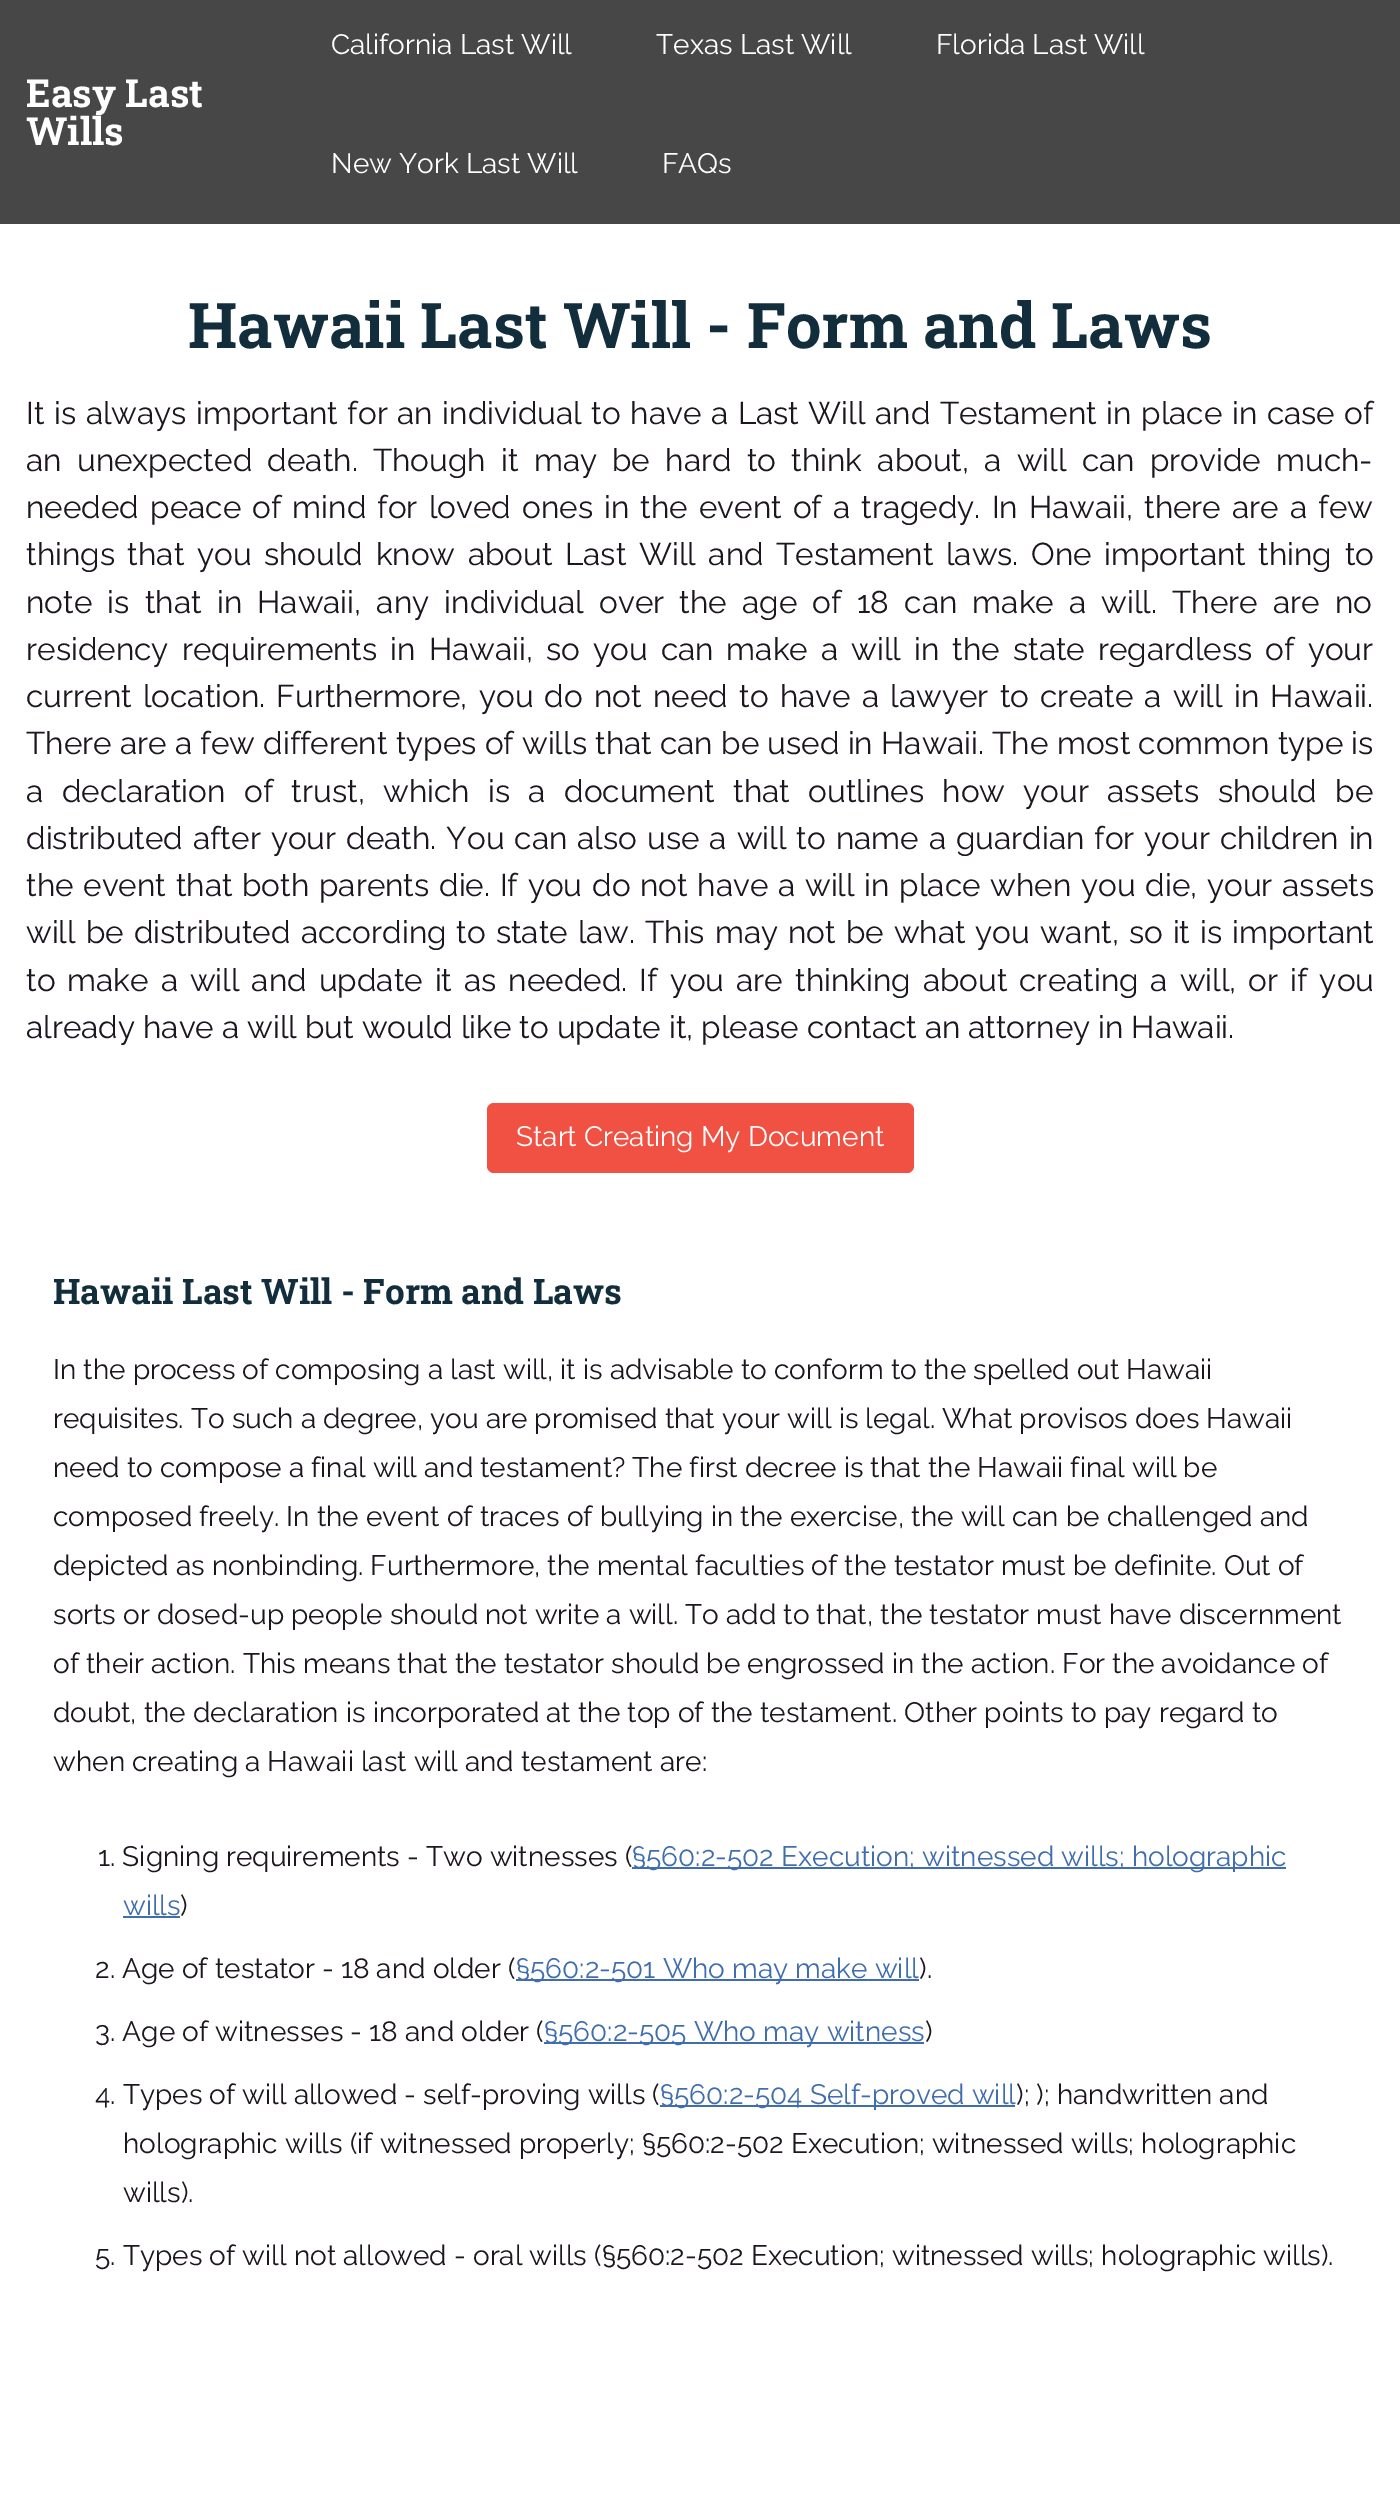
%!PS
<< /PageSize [1400 2510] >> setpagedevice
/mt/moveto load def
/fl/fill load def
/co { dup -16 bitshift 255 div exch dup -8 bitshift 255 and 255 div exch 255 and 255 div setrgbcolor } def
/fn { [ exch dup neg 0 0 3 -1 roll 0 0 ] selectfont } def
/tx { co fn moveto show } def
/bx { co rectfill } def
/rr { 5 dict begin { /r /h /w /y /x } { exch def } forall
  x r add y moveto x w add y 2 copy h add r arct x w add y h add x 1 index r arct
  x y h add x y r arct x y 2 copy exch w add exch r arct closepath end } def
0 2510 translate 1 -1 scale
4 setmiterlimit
0 0 1400 2510 16#FFFFFF bx
0 0 1400 224 16#474747 bx
16#F15142 co
487 1103 427 70 7 rr fl
632 1867 654 2 16#3F6DAE bx
123 1916 57 2 16#3F6DAE bx
516 1979 403 2 16#3F6DAE bx
544 2042 380 2 16#3F6DAE bx
660 2105 355 2 16#3F6DAE bx
(Easy Last) 26 107 /RobotoSlab-Bold 38.5 16#FFFFFF tx
(Wills) 26 145 /RobotoSlab-Bold 38.5 16#FFFFFF tx
(California Last Will) 331 54 /Raleway-Regular 28 16#FFFFFF tx
(Texas Last Will) 656 54 /Raleway-Regular 28 16#FFFFFF tx
(Florida Last Will) 936 54 /Raleway-Regular 28 16#FFFFFF tx
(New York Last Will) 331 173 /Raleway-Regular 28 16#FFFFFF tx
(FAQs) 662 173 /Raleway-Regular 28 16#FFFFFF tx
(Hawaii Last Will - Form and Laws) 188 348 /RobotoSlab-Bold 63 16#122D3B tx
/Raleway-Regular 31.5 fn
16#1D151F co
26 424 mt 1.6 0 32 (It is always important for an individual to have a Last Will and Testament in place in case of) widthshow
26 471 mt 7.25 0 32 (an unexpected death. Though it may be hard to think about, a will can provide much-) widthshow
26 518 mt 3.1 0 32 (needed peace of mind for loved ones in the event of a tragedy. In Hawaii, there are a few) widthshow
26 565 mt 4.6 0 32 (things that you should know about Last Will and Testament laws. One important thing to) widthshow
26 613 mt 7.25 0 32 (note is that in Hawaii, any individual over the age of 18 can make a will. There are no) widthshow
26 660 mt 5.1 0 32 (residency requirements in Hawaii, so you can make a will in the state regardless of your) widthshow
26 707 mt 3.25 0 32 (current location. Furthermore, you do not need to have a lawyer to create a will in Hawaii.) widthshow
26 754 mt .25 0 32 (There are a few different types of wills that can be used in Hawaii. The most common type is) widthshow
26 802 mt 10.4 0 32 (a declaration of trust, which is a document that outlines how your assets should be) widthshow
26 849 mt 2 0 32 (distributed after your death. You can also use a will to name a guardian for your children in) widthshow
26 896 mt 1.75 0 32 (the event that both parents die. If you do not have a will in place when you die, your assets) widthshow
26 943 mt 2 0 32 (will be distributed according to state law. This may not be what you want, so it is important) widthshow
26 991 mt 4 0 32 (to make a will and update it as needed. If you are thinking about creating a will, or if you) widthshow
(already have a will but would like to update it, please contact an attorney in Hawaii.) 26 1038 /Raleway-Regular 31.5 16#1D151F tx
(Start Creating My Document) 516 1146 /Raleway-Regular 28 16#FFFFFF tx
(Hawaii Last Will - Form and Laws) 53 1304 /RobotoSlab-Bold 35 16#122D3B tx
(In the process of composing a last will, it is advisable to conform to the spelled out Hawaii) 53 1379 /Raleway-Regular 28 16#1D151F tx
(requisites. To such a degree, you are promised that your will is legal. What provisos does Hawaii) 53 1428 /Raleway-Regular 28 16#1D151F tx
(need to compose a final will and testament? The first decree is that the Hawaii final will be) 53 1477 /Raleway-Regular 28 16#1D151F tx
(composed freely. In the event of traces of bullying in the exercise, the will can be challenged and) 53 1526 /Raleway-Regular 28 16#1D151F tx
(depicted as nonbinding. Furthermore, the mental faculties of the testator must be definite. Out of) 53 1575 /Raleway-Regular 28 16#1D151F tx
(sorts or dosed-up people should not write a will. To add to that, the testator must have discernment) 53 1624 /Raleway-Regular 28 16#1D151F tx
(of their action. This means that the testator should be engrossed in the action. For the avoidance of) 53 1673 /Raleway-Regular 28 16#1D151F tx
(doubt, the declaration is incorporated at the top of the testament. Other points to pay regard to) 53 1722 /Raleway-Regular 28 16#1D151F tx
(when creating a Hawaii last will and testament are:) 53 1771 /Raleway-Regular 28 16#1D151F tx
(1. Signing requirements - Two witnesses \() 98 1866 /Raleway-Regular 28 16#1D151F tx
(§560:2-502 Execution; witnessed wills; holographic) 632 1866 /Raleway-Regular 28 16#3F6DAE tx
(wills) 123 1915 /Raleway-Regular 28 16#3F6DAE tx
(\)) 180 1915 /Raleway-Regular 28 16#1D151F tx
(2. Age of testator - 18 and older \() 95 1978 /Raleway-Regular 28 16#1D151F tx
(§560:2-501 Who may make will) 516 1978 /Raleway-Regular 28 16#3F6DAE tx
(\).) 919 1978 /Raleway-Regular 28 16#1D151F tx
(3. Age of witnesses - 18 and older \() 95 2041 /Raleway-Regular 28 16#1D151F tx
(§560:2-505 Who may witness) 544 2041 /Raleway-Regular 28 16#3F6DAE tx
(\)) 925 2041 /Raleway-Regular 28 16#1D151F tx
(4. Types of will allowed - self-proving wills \() 95 2104 /Raleway-Regular 28 16#1D151F tx
(§560:2-504 Self-proved will) 660 2104 /Raleway-Regular 28 16#3F6DAE tx
(\); \); handwritten and) 1016 2104 /Raleway-Regular 28 16#1D151F tx
(holographic wills \(if witnessed properly; §560:2-502 Execution; witnessed wills; holographic) 123 2153 /Raleway-Regular 28 16#1D151F tx
(wills\).) 123 2202 /Raleway-Regular 28 16#1D151F tx
(5. Types of will not allowed - oral wills \(§560:2-502 Execution; witnessed wills; holographic wills\).) 95 2265 /Raleway-Regular 28 16#1D151F tx
showpage
